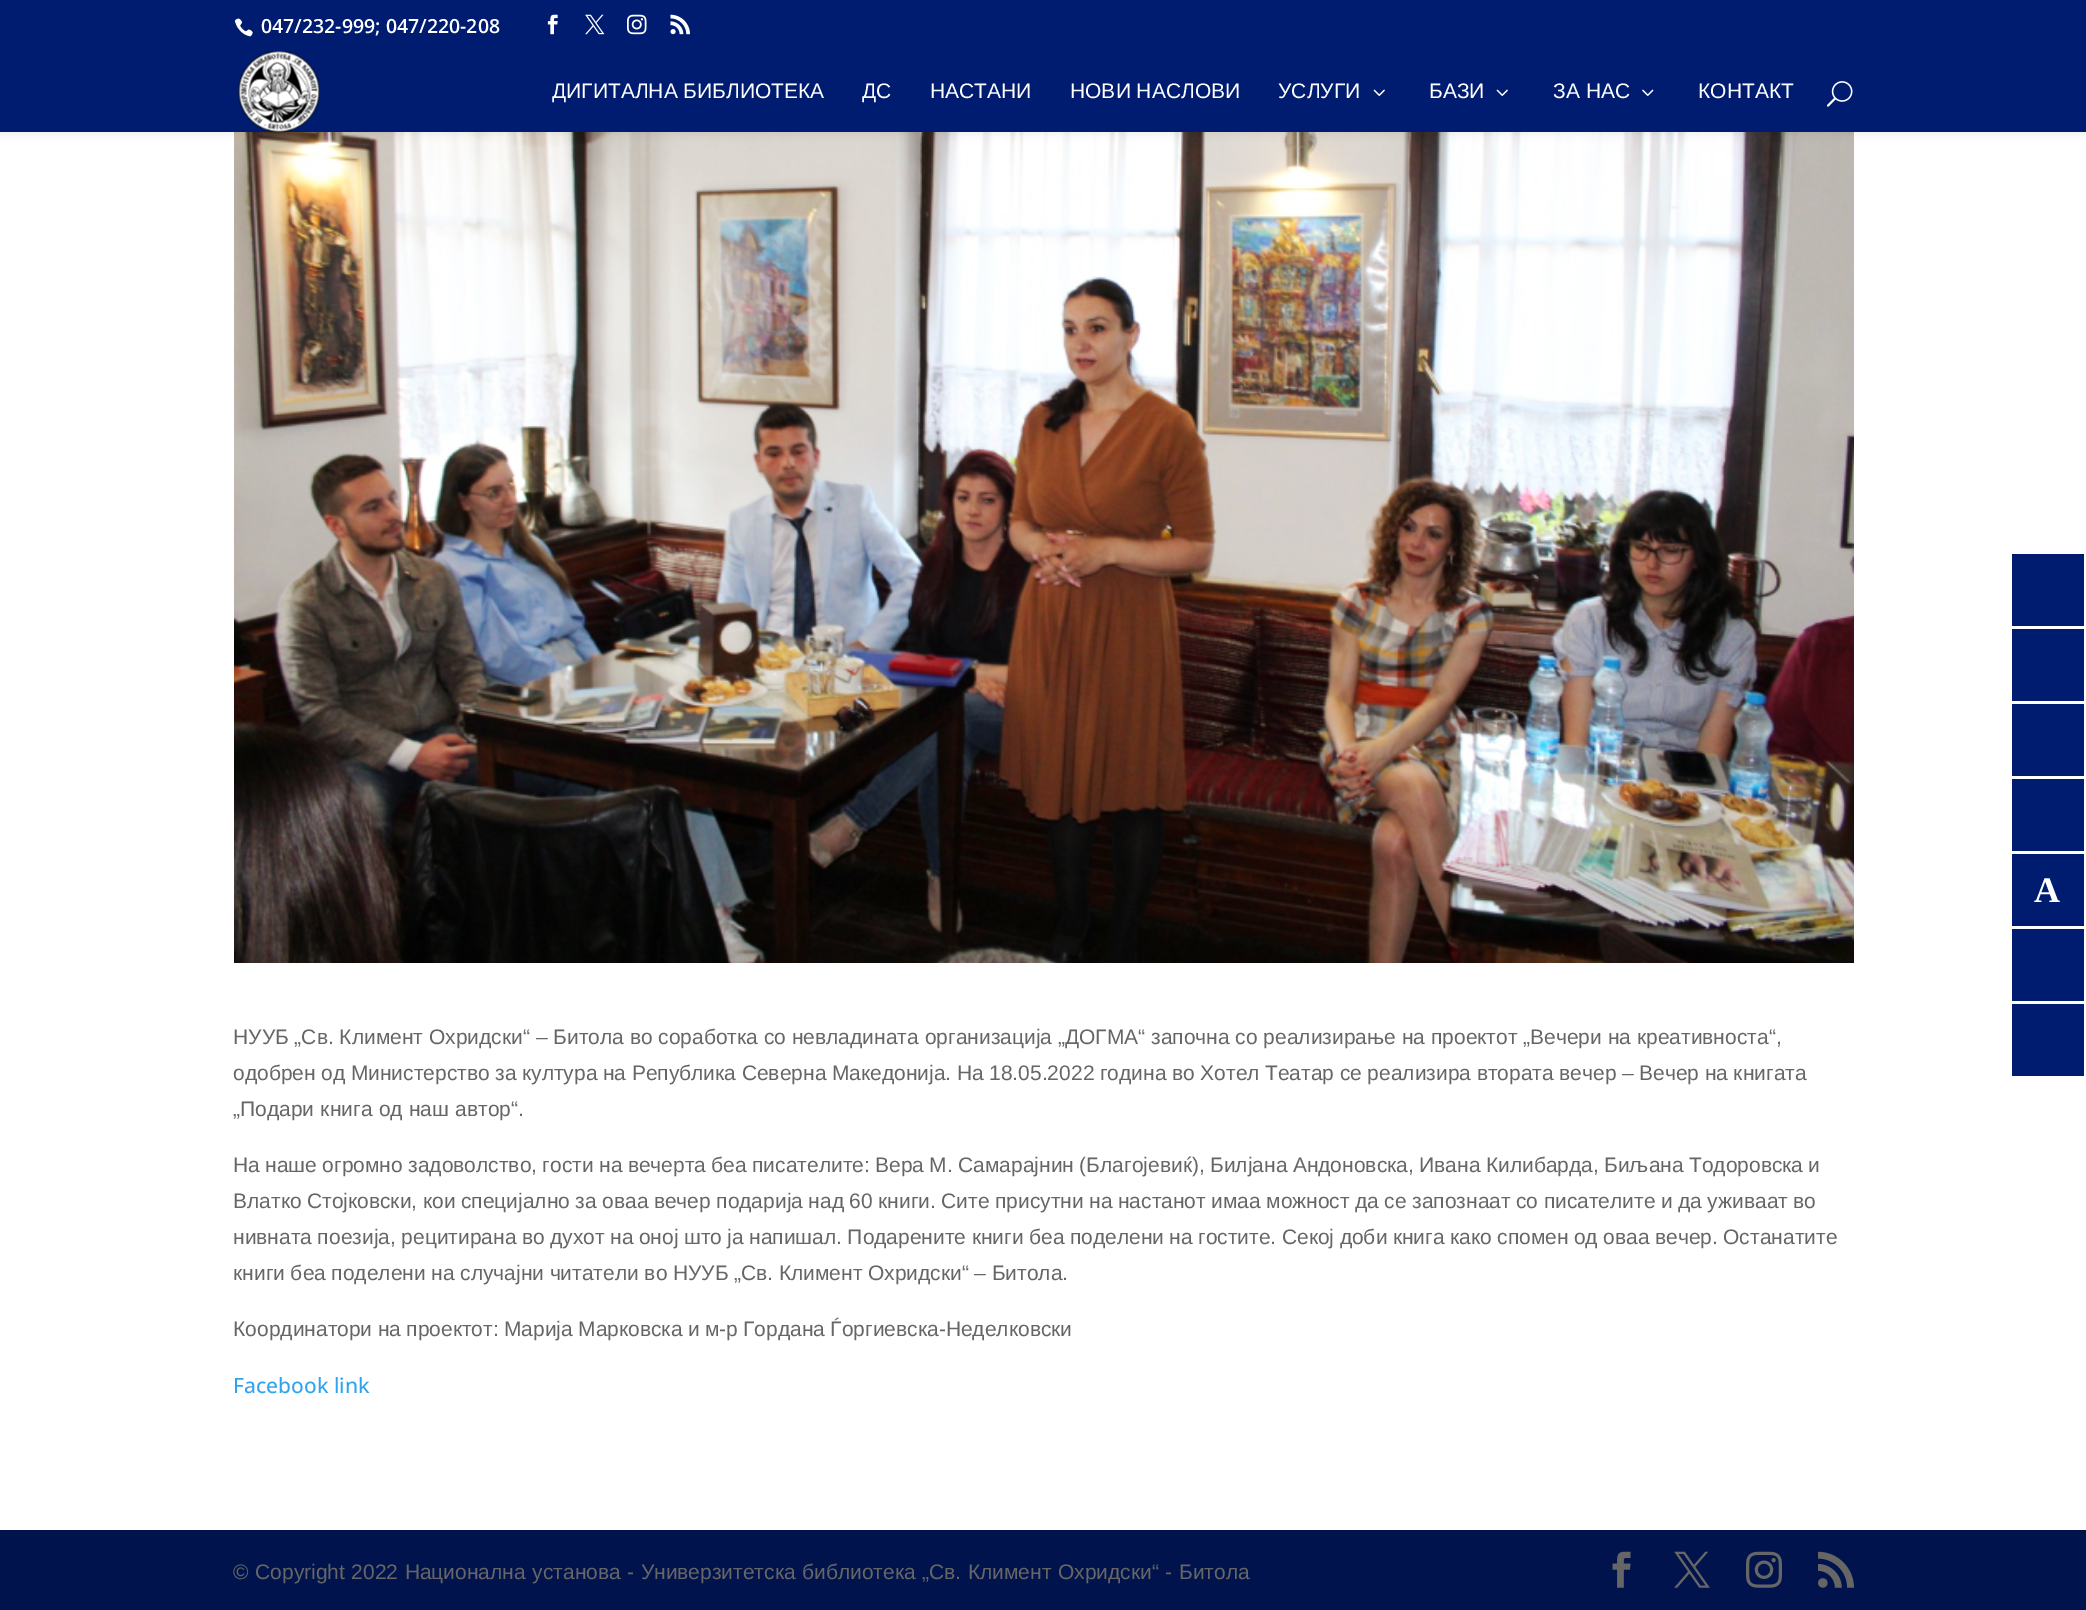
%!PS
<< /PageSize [2086 1610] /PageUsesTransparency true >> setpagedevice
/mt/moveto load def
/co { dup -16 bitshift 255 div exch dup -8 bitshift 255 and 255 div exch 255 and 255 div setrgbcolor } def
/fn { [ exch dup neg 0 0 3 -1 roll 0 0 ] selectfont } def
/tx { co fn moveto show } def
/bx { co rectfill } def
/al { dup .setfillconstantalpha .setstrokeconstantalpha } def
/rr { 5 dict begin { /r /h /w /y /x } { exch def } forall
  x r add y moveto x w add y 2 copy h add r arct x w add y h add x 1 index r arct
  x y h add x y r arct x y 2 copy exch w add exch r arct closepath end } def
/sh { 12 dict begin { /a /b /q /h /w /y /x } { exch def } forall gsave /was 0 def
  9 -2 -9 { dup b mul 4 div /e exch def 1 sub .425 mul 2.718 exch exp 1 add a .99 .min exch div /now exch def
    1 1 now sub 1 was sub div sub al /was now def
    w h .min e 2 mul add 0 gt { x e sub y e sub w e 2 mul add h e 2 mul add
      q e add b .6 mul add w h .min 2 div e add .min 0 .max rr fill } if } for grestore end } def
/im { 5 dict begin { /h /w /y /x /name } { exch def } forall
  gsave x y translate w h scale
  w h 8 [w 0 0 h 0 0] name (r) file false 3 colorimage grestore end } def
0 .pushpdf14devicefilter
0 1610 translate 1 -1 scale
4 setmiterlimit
0 0 2086 1610 16#FFFFFF bx
(media/10.raw) 234 132 1620 831 im
16#000000 co
0 51 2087 81 0 5 .1 sh
0 0 2086 132 16#001C70 bx
(media/1.raw) 234 18 19 19 im
(media/2.raw) 547 14 11 21 im
(media/3.raw) 585 14 20 21 im
(media/4.raw) 627 14 20 21 im
(media/5.raw) 670 14 20 21 im
(media/6.raw) 238 51 82 82 im
(media/7.raw) 1373 89 12 7 im
(media/7.raw) 1496 89 12 7 im
(media/8.raw) 1642 89 12 7 im
(media/9.raw) 1826 81 27 26 im
0 1530 2086 80 16#00134C bx
(media/11.raw) 1612 1551 19 37 im
(media/12.raw) 1674 1551 36 37 im
(media/13.raw) 1746 1551 36 37 im
(media/14.raw) 1818 1551 36 37 im
2012 554 72 72 16#001C70 bx
2012 629 72 72 16#001C70 bx
2012 704 72 72 16#001C70 bx
2012 779 72 72 16#001C70 bx
2012 854 72 72 16#001C70 bx
2012 929 72 72 16#001C70 bx
2012 1004 72 72 16#001C70 bx
(047/232-999; 047/220-208) 261 33 /OpenSans-SemiBold 19.5 16#FFFFFF tx
(ДИГИТАЛНА БИБЛИОТЕКА) 552 98 /LiberationSans-Regular 21 16#FFFFFF tx
(ДС) 862 98 /LiberationSans-Regular 21 16#FFFFFF tx
(НАСТАНИ) 930 98 /LiberationSans-Regular 21 16#FFFFFF tx
(НОВИ НАСЛОВИ) 1070 98 /LiberationSans-Regular 21 16#FFFFFF tx
(УСЛУГИ) 1278 98 /LiberationSans-Regular 21 16#FFFFFF tx
(БАЗИ) 1429 98 /LiberationSans-Regular 21 16#FFFFFF tx
(ЗА НАС) 1553 98 /LiberationSans-Regular 21 16#FFFFFF tx
(КОНТАКТ) 1698 98 /LiberationSans-Regular 21 16#FFFFFF tx
(НУУБ „Св. Климент Охридски“ – Битола во соработка со невладината организација „ДОГМА“ започна со реализирање на проектот „Вечери на креативноста“,) 233 1044 /LiberationSans-Regular 21 16#666666 tx
233 1080 mt -.3 0 32 (одобрен од Министерство за култура на Република Северна Македонија. На 18.05.2022 година во Хотел Театар се реализира втората вечер – Вечер на книгата) widthshow
233 1116 mt .5 0 32 („Подари книга од наш автор“.) widthshow
233 1172 mt -.5 0 32 (На наше огромно задоволство, гости на вечерта беа писателите: Вера М. Самарајнин \(Благојевиќ\), Билјана Андоновска, Ивана Килибарда, Биљана Тодоровска и) widthshow
233 1208 mt -.4 0 32 (Влатко Стојковски, кои специјално за оваа вечер подарија над 60 книги. Сите присутни на настанот имаа можност да се запознаат со писателите и да уживаат во) widthshow
233 1244 mt -.4 0 32 (нивната поезија, рецитирана во духот на оној што ја напишал. Подарените книги беа поделени на гостите. Секој доби книга како спомен од оваа вечер. Останатите) widthshow
233 1280 mt -.25 0 32 (книги беа поделени на случајни читатели во НУУБ „Св. Климент Охридски“ – Битола.) widthshow
233 1336 mt -.5 0 32 (Координатори на проектот: Марија Марковска и м-р Гордана Ѓоргиевска-Неделковски) widthshow
(Facebook link) 233 1393 /OpenSans-Medium 21 16#2EA3F2 tx
/LiberationSans-Regular 21 fn
16#666666 co
233 1579 mt .7 0 32 (© Copyright 2022 Национална установа - Универзитетска библиотека „Св. Климент Охридски“ - Битола) widthshow
(A) 2034 902 /LiberationSerif-Bold 36 16#FFFFFF tx
.poppdf14devicefilter showpage
